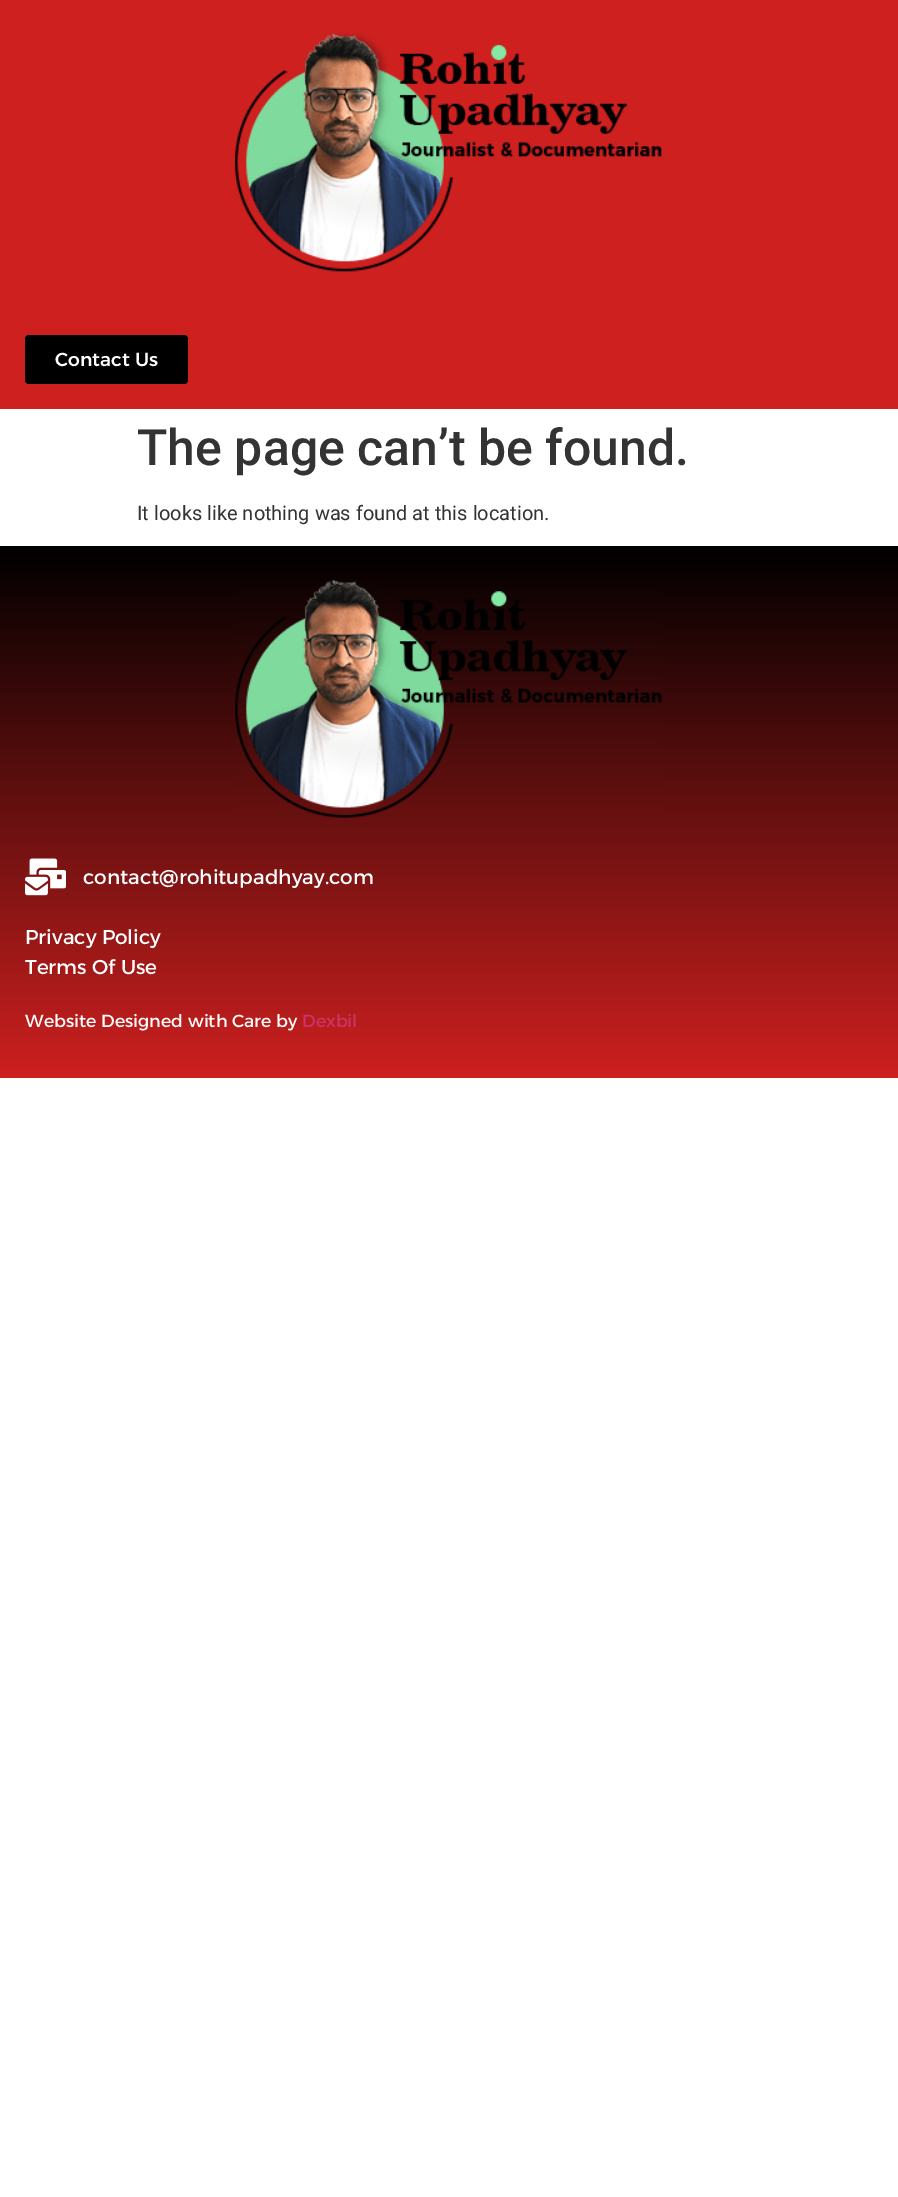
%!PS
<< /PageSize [898 2197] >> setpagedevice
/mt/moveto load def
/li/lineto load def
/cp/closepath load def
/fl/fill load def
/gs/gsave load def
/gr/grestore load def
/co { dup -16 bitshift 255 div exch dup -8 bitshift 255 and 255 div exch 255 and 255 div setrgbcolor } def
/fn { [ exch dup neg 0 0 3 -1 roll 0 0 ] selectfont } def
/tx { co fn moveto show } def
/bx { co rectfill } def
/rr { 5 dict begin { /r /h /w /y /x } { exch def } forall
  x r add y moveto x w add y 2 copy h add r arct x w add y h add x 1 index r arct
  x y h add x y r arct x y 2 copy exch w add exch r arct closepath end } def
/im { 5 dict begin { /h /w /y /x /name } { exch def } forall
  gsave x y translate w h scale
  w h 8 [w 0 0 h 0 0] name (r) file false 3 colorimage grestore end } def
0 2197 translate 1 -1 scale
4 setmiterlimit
0 0 898 2197 16#FFFFFF bx
0 0 898 409 16#CD201F bx
(media/1.raw) 234 31 428 241 im
16#000000 co
25 335 163 49 4 rr fl
gs 0 546 mt 898 546 li 898 1078 li 0 1078 li cp clip newpath
<< /ShadingType 2 /ColorSpace /DeviceRGB /Coords [449 546 449 1078] /Extend [true true] /Function << /FunctionType 2 /Domain [0 1] /C0 [0 0 0] /C1 [.804 .125 .122] /N 1 >> >> shfill gr
(media/2.raw) 235 579 427 239 im
(media/3.raw) 25 858 41 38 im
(Contact Us) 55 366 /Alexandria-Medium 18.75 16#FFFFFF tx
(The page can’t be found.) 137 465 /Roboto-Medium 50 16#333333 tx
(It looks like nothing was found at this location.) 137 520 /Roboto-Regular 20 16#333333 tx
(contact@rohitupadhyay.com) 83 884 /Alexandria-Regular 20 16#FFFFFF tx
(Privacy Policy) 25 944 /Alexandria-Regular 20 16#FFFFFF tx
(Terms Of Use) 25 974 /Alexandria-Regular 20 16#FFFFFF tx
(Website Designed with Care by) 25 1027 /Alexandria-Regular 17.5 16#FFFFFF tx
(Dexbil) 302 1027 /Alexandria-Regular 17.5 16#CC3366 tx
showpage
